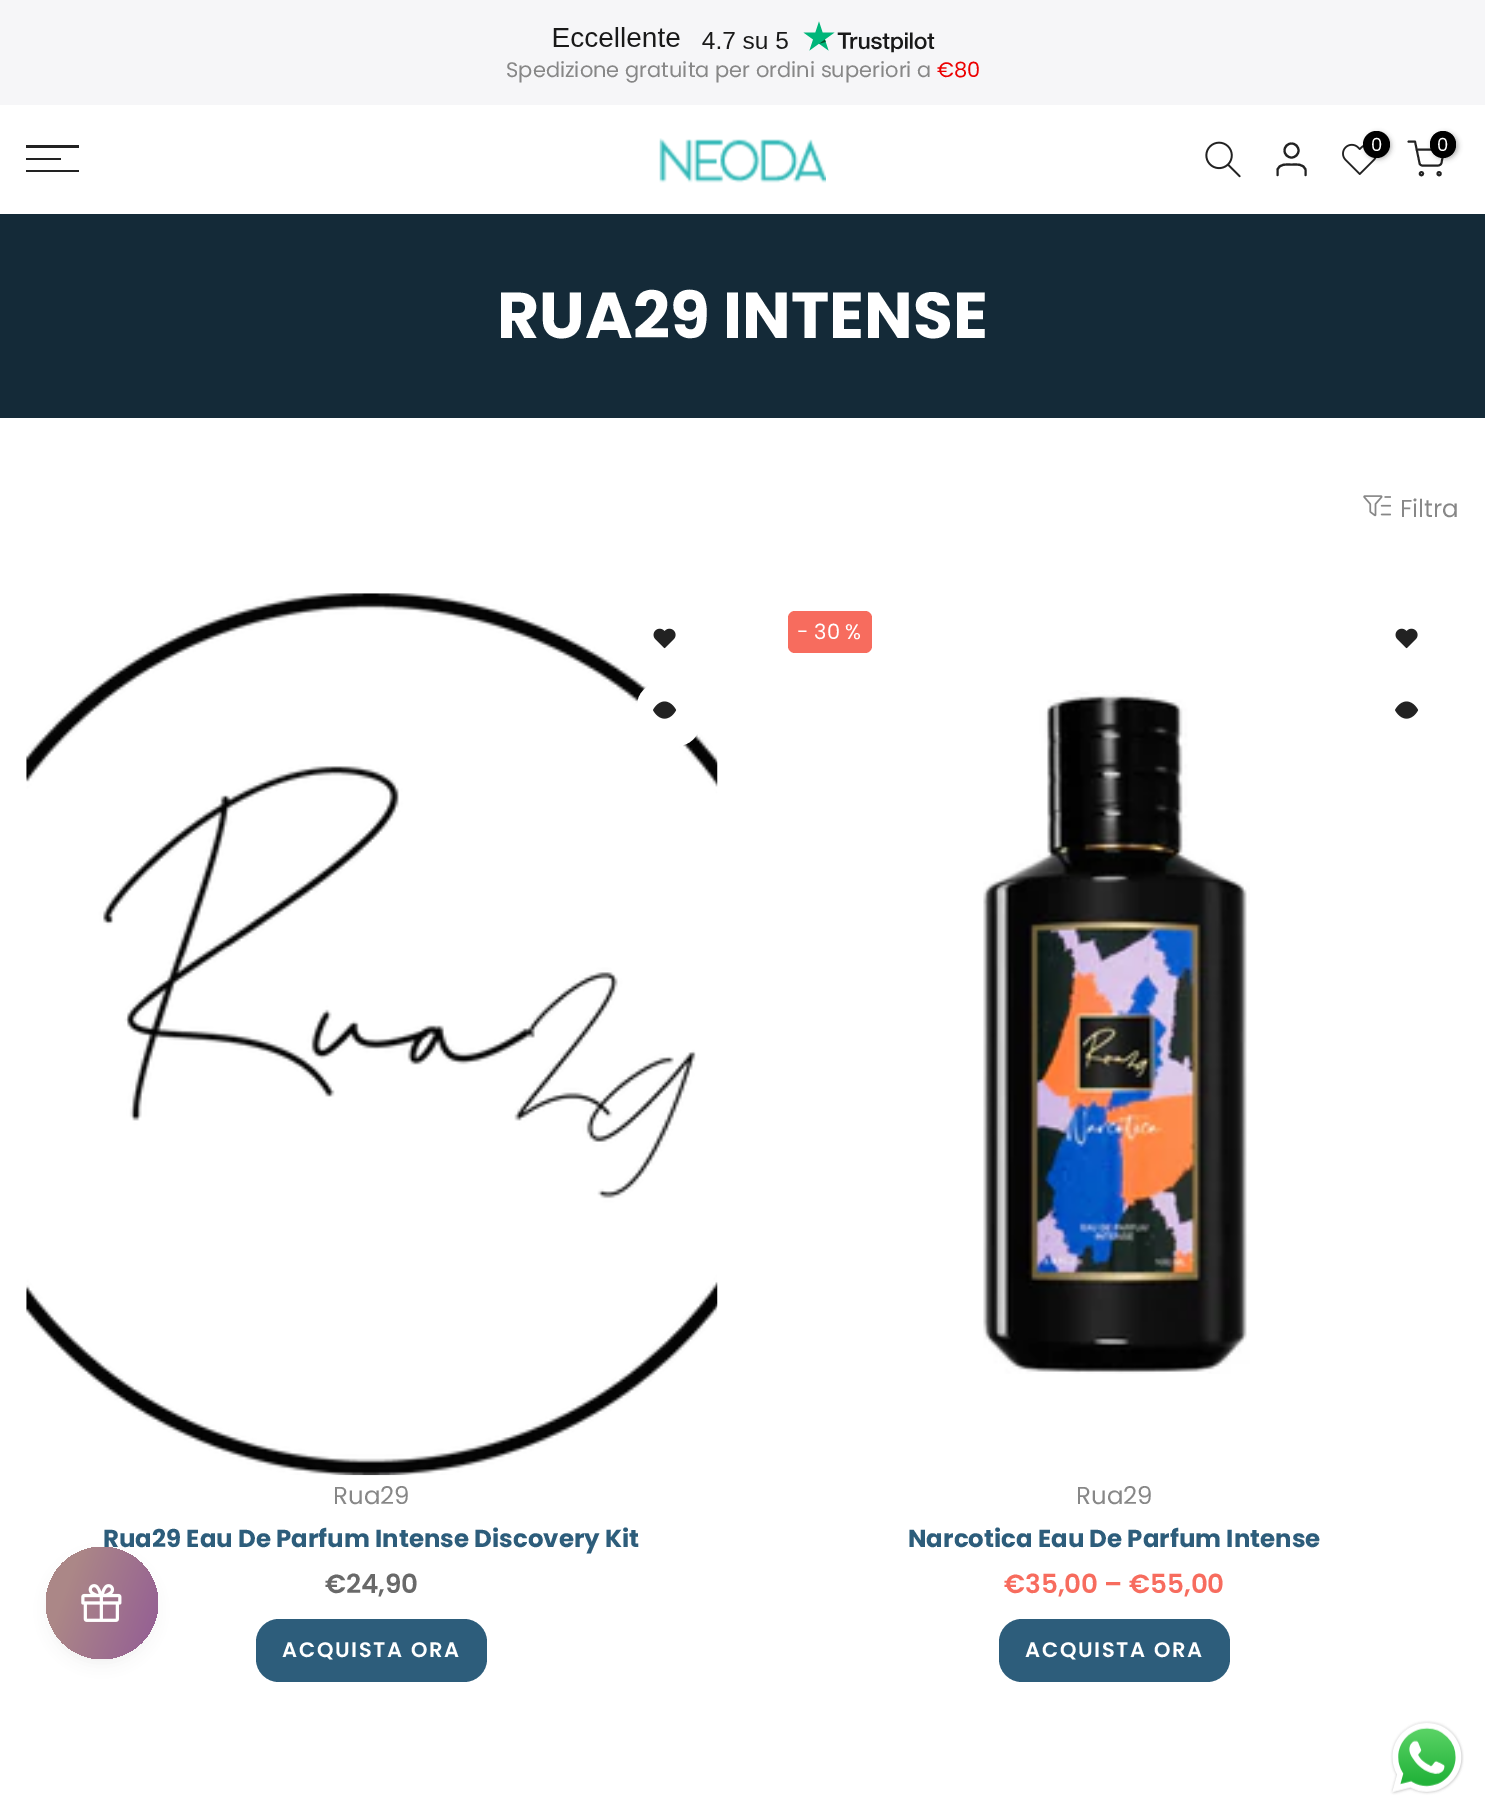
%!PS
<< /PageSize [1485 1816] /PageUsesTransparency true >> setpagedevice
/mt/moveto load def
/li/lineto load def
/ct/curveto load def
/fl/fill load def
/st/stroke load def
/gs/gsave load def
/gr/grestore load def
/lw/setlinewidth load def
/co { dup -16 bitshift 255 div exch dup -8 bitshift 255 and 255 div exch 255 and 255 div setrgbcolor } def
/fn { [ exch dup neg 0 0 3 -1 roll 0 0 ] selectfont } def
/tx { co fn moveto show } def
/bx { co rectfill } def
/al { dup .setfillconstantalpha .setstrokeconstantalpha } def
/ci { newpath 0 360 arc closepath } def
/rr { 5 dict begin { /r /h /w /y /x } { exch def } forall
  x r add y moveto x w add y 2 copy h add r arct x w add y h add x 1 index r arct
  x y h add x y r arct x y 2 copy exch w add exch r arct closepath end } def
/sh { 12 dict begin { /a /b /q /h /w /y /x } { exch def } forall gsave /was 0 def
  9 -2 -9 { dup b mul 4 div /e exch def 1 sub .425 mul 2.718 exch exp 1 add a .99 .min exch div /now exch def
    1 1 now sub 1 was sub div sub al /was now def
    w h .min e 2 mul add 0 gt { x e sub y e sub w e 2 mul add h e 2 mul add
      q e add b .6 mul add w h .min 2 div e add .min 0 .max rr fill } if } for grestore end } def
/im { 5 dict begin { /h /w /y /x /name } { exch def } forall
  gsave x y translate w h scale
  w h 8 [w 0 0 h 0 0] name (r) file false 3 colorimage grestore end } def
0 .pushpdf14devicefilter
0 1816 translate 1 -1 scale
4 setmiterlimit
0 0 1485 1816 16#FFFFFF bx
16#444444 co
49 1558 105 105 52.5 7 .08 sh
0 0 1485 105 16#F6F6F8 bx
(media/2.raw) 553 21 382 32 im
26 145 53 3 16#222222 bx
26 158 35 2 16#222222 bx
26 170 53 2 16#222222 bx
(media/3.raw) 659 138 167 45 im
(media/4.raw) 1205 141 36 37 im
2.1 lw
1291.5 150.5 7 ci st
1 setlinecap
1 setlinejoin
1305.5 175 mt 1305.5 170 li 1304 163.5 1296.5 164.5 1291.5 164.5 ct 1286.5 164.5 1279 163.5 1277.5 170 ct 1277.5 175 li st
(media/5.raw) 1342 143 35 32 im
16#000000 co
1365 133 26 26 13 2.5 .3 sh
1376.5 144.5 13.5 ci fl
16#222222 co
1.9 lw
1408.5 141.5 mt 1415 141.5 li 1419.5 163 li 1419.5 164.5 1421 165.5 1422.5 165.5 ct 1438 165.5 li 1439.5 165.5 1441 164.5 1441.5 163 ct 1444 149.5 li 1416.5 149.5 li st
16#000000 co
1432 133 26 26 13 2.5 .3 sh
1430 131 26 27 13 rr fl
16#222222 co
0 setlinecap
0 setlinejoin
1421.4 173.7 1.6 ci st
1439.1 173.7 1.6 ci st
0 214 1485 204 16#142A38 bx
(media/6.raw) 1363 495 28 22 im
(media/7.raw) 26 593 692 883 im
(media/8.raw) 653 628 23 21 im
16#FFFFFF co
637 683 63 63 23 rr fl
(media/9.raw) 653 701 24 18 im
16#2D5D7B co
256 1619 231 63 23 rr fl
16#F76C5E co
788 611 84 42 7 rr fl
(media/8.raw) 1395 628 23 21 im
(media/9.raw) 1395 701 24 18 im
(media/10.raw) 983 690 267 684 im
16#2D5D7B co
999 1619 231 63 23 rr fl
(media/11.raw) 1390 1720 74 75 im
(Spedizione gratuita per ordini superiori a) 506 77 /Poppins-Regular 21 16#878787 tx
(€80) 937 77 /Poppins-Regular 21 16#EC0101 tx
(0) 1371 151 /Poppins-Regular 18 16#FFFFFF tx
(0) 1437 151 /Poppins-Regular 18 16#FFFFFF tx
(RUA29 INTENSE) 497 338 /Poppins-Bold 64.75 16#FFFFFF tx
(Filtra) 1400 517 /Poppins-Regular 24.5 16#878787 tx
(Rua29) 333 1504 /Poppins-Regular 24.5 16#878787 tx
(Rua29 Eau De Parfum Intense Discovery Kit) 103 1547 /Poppins-Bold 24.5 16#2D5D7B tx
gs 102 1603 56 ci clip newpath
<< /ShadingType 2 /ColorSpace /DeviceRGB /Coords [34 1579 223 1646] /Extend [true true] /Function << /FunctionType 3 /Domain [0 1] /Functions [<< /FunctionType 2 /Domain [0 1] /C0 [.671 .529 .529] /C1 [.671 .529 .529] /N 1 >> << /FunctionType 2 /Domain [0 1] /C0 [.671 .529 .529] /C1 [.525 .275 .612] /N 1 >>] /Bounds [.17] /Encode [0 1 0 1] >> >> shfill gr
(media/1.raw) 81 1584 41 38 im
(€24,90) 325 1593 /Poppins-SemiBold 26.25 16#696969 tx
/Poppins-SemiBold 21 fn
16#FFFFFF co
282 1657 mt 1.75 0 (ACQUISTA ORA) ashow
(- 30 %) 797 639 /Poppins-Regular 21 16#FFFFFF tx
(Rua29) 1076 1504 /Poppins-Regular 24.5 16#878787 tx
(Narcotica Eau De Parfum Intense) 908 1547 /Poppins-Bold 24.5 16#2D5D7B tx
(€35,00 – €55,00) 1004 1593 /Poppins-SemiBold 26.25 16#F76C5E tx
/Poppins-SemiBold 21 fn
16#FFFFFF co
1025 1657 mt 1.75 0 (ACQUISTA ORA) ashow
.poppdf14devicefilter showpage
